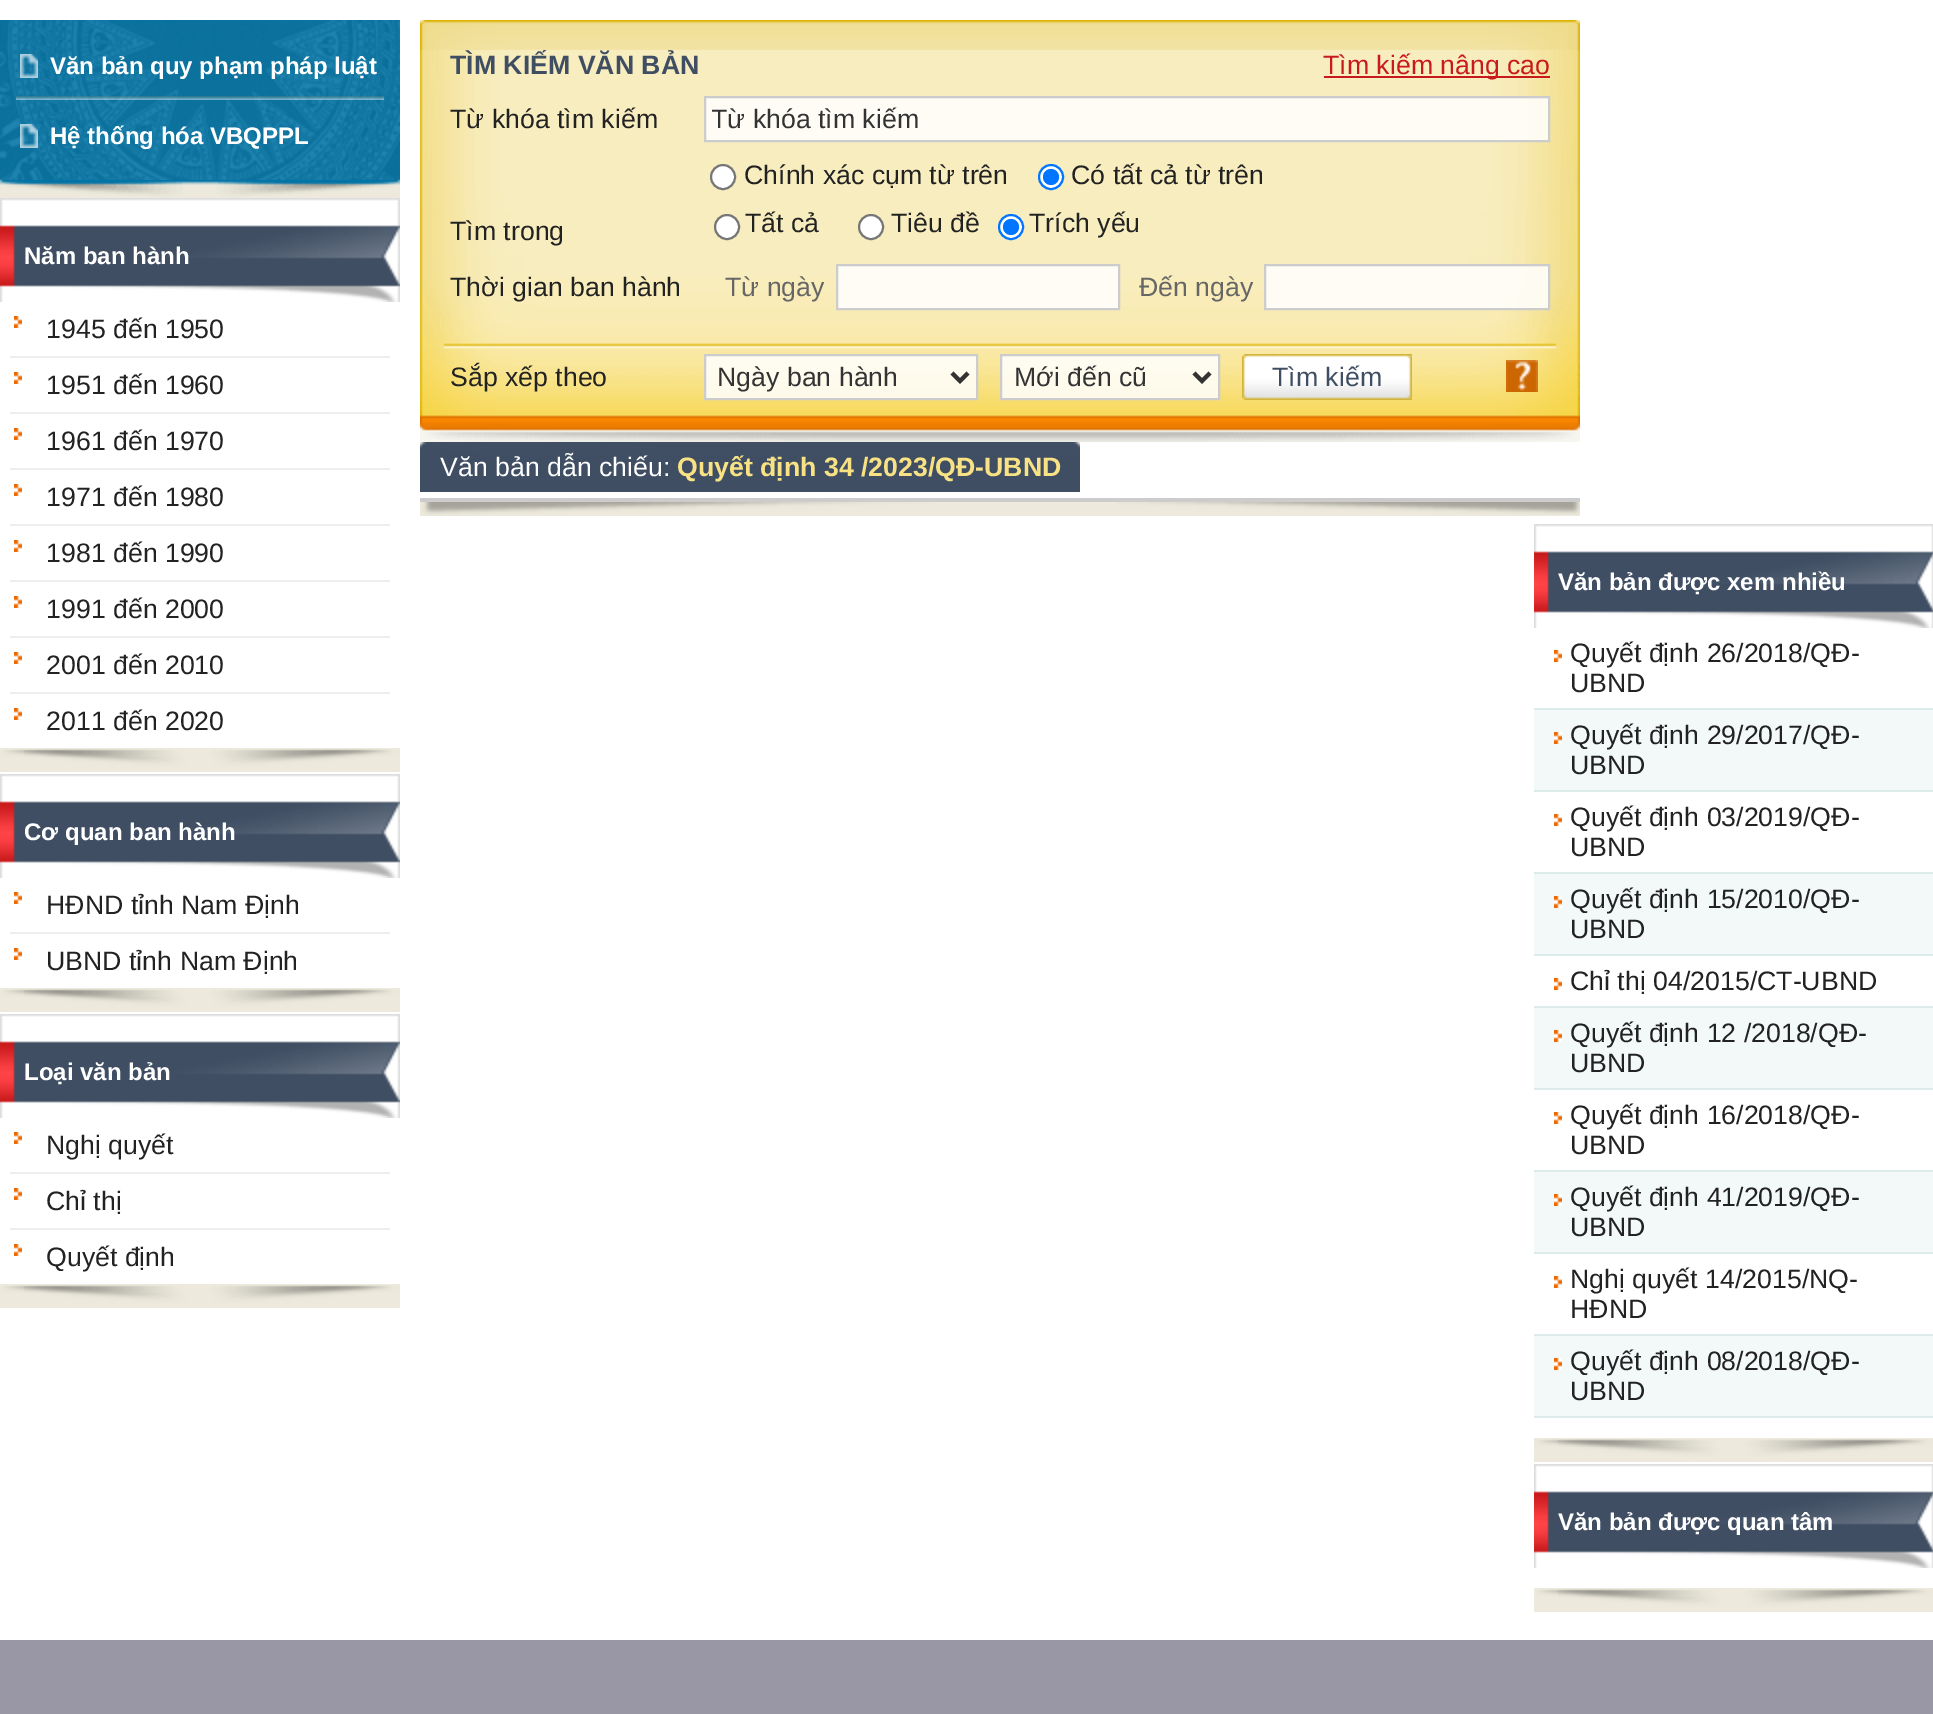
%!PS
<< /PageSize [1933 1714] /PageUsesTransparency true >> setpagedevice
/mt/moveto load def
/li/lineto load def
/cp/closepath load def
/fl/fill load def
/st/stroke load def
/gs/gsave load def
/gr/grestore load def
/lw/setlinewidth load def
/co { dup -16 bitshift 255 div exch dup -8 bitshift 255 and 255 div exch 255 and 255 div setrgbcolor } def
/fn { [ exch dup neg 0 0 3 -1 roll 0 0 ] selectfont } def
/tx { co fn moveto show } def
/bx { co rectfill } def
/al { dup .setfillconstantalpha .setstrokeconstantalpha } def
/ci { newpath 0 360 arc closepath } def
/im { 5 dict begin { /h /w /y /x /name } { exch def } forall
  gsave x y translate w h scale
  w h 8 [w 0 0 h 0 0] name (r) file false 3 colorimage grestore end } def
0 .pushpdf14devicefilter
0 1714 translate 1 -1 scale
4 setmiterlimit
0 0 1933 1714 16#FFFFFF bx
0 20 400 159 16#0173A6 bx
(media/1.raw) 0 179 400 19 im
(media/2.raw) 0 20 400 160 im
(media/3.raw) 16 96 368 4 im
(media/4.raw) 20 54 18 24 im
(media/5.raw) 20 124 18 24 im
(media/6.raw) 0 198 400 104 im
(media/7.raw) 290 199 110 103 im
(media/8.raw) 14 316 8 12 im
10 356 380 2 16#EEEEEE bx
(media/8.raw) 14 372 8 12 im
10 412 380 2 16#EEEEEE bx
(media/8.raw) 14 428 8 12 im
10 468 380 2 16#EEEEEE bx
(media/8.raw) 14 484 8 12 im
10 524 380 2 16#EEEEEE bx
(media/8.raw) 14 540 8 12 im
10 580 380 2 16#EEEEEE bx
(media/8.raw) 14 596 8 12 im
10 636 380 2 16#EEEEEE bx
(media/8.raw) 14 652 8 12 im
10 692 380 2 16#EEEEEE bx
(media/8.raw) 14 708 8 12 im
(media/9.raw) 0 748 400 24 im
(media/10.raw) 24 750 372 7 im
(media/6.raw) 0 774 400 104 im
(media/7.raw) 290 775 110 103 im
(media/8.raw) 14 892 8 12 im
10 932 380 2 16#EEEEEE bx
(media/8.raw) 14 948 8 12 im
(media/9.raw) 0 988 400 24 im
(media/10.raw) 24 990 372 7 im
(media/6.raw) 0 1014 400 104 im
(media/7.raw) 290 1015 110 103 im
(media/8.raw) 14 1132 8 12 im
10 1172 380 2 16#EEEEEE bx
(media/8.raw) 14 1188 8 12 im
10 1228 380 2 16#EEEEEE bx
(media/8.raw) 14 1244 8 12 im
(media/9.raw) 0 1284 400 24 im
(media/10.raw) 24 1286 372 7 im
(media/11.raw) 420 20 1160 30 im
(media/12.raw) 420 50 1160 392 im
1324 76 226 2 16#C81A1D bx
0.85 al
16#FFFFFF co
705 97 mt 1549 97 li 1549 141 li 705 141 li cp fl
1 al
16#CCCCCC co
2 lw
705 97 mt 1549 97 li 1549 141 li 705 141 li cp st
16#FFFFFF co
723 177 12 ci gs fl gr
16#767676 co
st
16#FFFFFF co
1051 177 12 ci gs fl gr
16#0075FF co
st
1051 177 8 ci fl
16#FFFFFF co
727 227 12 ci gs fl gr
16#767676 co
st
16#FFFFFF co
871 227 12 ci gs fl gr
16#767676 co
st
16#FFFFFF co
1011 227 12 ci gs fl gr
16#0075FF co
st
1011 227 8 ci fl
0.85 al
16#FFFFFF co
837 265 mt 1119 265 li 1119 309 li 837 309 li cp fl
1 al
16#CCCCCC co
837 265 mt 1119 265 li 1119 309 li 837 309 li cp st
0.85 al
16#FFFFFF co
1265 265 mt 1549 265 li 1549 309 li 1265 309 li cp fl
1 al
16#CCCCCC co
1265 265 mt 1549 265 li 1549 309 li 1265 309 li cp st
0.85 al
16#FFFFFF co
705 355 mt 977 355 li 977 399 li 705 399 li cp fl
1 al
16#CCCCCC co
705 355 mt 977 355 li 977 399 li 705 399 li cp st
16#333333 co
4 lw
952 373 mt 960 381 li 968 373 li st
0.85 al
16#FFFFFF co
1001 355 mt 1219 355 li 1219 399 li 1001 399 li cp fl
1 al
16#CCCCCC co
2 lw
1001 355 mt 1219 355 li 1219 399 li 1001 399 li cp st
16#333333 co
4 lw
1194 373 mt 1202 381 li 1210 373 li st
(media/13.raw) 1242 354 170 46 im
(media/14.raw) 1406 355 6 44 im
(media/15.raw) 1506 360 32 32 im
(media/16.raw) 420 442 660 50 im
(media/17.raw) 1074 442 6 6 im
420 498 1160 4 16#CCCCCC bx
(media/18.raw) 420 502 1160 14 im
(media/19.raw) 1117 502 463 13 im
(media/20.raw) 1534 524 399 104 im
(media/21.raw) 1824 525 109 103 im
(media/8.raw) 1554 650 8 12 im
1534 708 399 2 16#DCECEB bx
1534 710 399 80 16#F3F9F9 bx
(media/8.raw) 1554 732 8 12 im
1534 790 399 2 16#DCECEB bx
(media/8.raw) 1554 814 8 12 im
1534 872 399 2 16#DCECEB bx
1534 874 399 80 16#F3F9F9 bx
(media/8.raw) 1554 896 8 12 im
1534 954 399 2 16#DCECEB bx
(media/8.raw) 1554 978 8 12 im
1534 1006 399 2 16#DCECEB bx
1534 1008 399 80 16#F3F9F9 bx
(media/8.raw) 1554 1030 8 12 im
1534 1088 399 2 16#DCECEB bx
(media/8.raw) 1554 1112 8 12 im
1534 1170 399 2 16#DCECEB bx
1534 1172 399 80 16#F3F9F9 bx
(media/8.raw) 1554 1194 8 12 im
1534 1252 399 2 16#DCECEB bx
(media/8.raw) 1554 1276 8 12 im
1534 1334 399 2 16#DCECEB bx
1534 1336 399 80 16#F3F9F9 bx
(media/8.raw) 1554 1358 8 12 im
1534 1416 399 2 16#DCECEB bx
(media/22.raw) 1534 1438 399 24 im
(media/10.raw) 1558 1440 372 7 im
(media/20.raw) 1534 1464 399 104 im
(media/21.raw) 1824 1465 109 103 im
(media/22.raw) 1534 1588 399 24 im
(media/10.raw) 1558 1590 372 7 im
0 1640 1933 74 16#9996A6 bx
(Văn bản quy phạm pháp luật) 50 74 /LiberationSans-Bold 24 16#FFFFFF tx
(Hệ thống hóa VBQPPL) 50 144 /LiberationSans-Bold 24 16#FFFFFF tx
(Năm ban hành) 24 264 /LiberationSans-Bold 24 16#FFFFFF tx
(1945 đến 1950) 46 338 /LiberationSans-Regular 26.7 16#222222 tx
(1951 đến 1960) 46 394 /LiberationSans-Regular 26.7 16#222222 tx
(1961 đến 1970) 46 450 /LiberationSans-Regular 26.7 16#222222 tx
(1971 đến 1980) 46 506 /LiberationSans-Regular 26.7 16#222222 tx
(1981 đến 1990) 46 562 /LiberationSans-Regular 26.7 16#222222 tx
(1991 đến 2000) 46 618 /LiberationSans-Regular 26.7 16#222222 tx
(2001 đến 2010) 46 674 /LiberationSans-Regular 26.7 16#222222 tx
(2011 đến 2020) 46 730 /LiberationSans-Regular 26.7 16#222222 tx
(Cơ quan ban hành) 24 840 /LiberationSans-Bold 24 16#FFFFFF tx
(HĐND tỉnh Nam Định) 46 914 /LiberationSans-Regular 26.7 16#222222 tx
(UBND tỉnh Nam Định) 46 970 /LiberationSans-Regular 26.7 16#222222 tx
(Loại văn bản) 24 1080 /LiberationSans-Bold 24 16#FFFFFF tx
(Nghị quyết) 46 1154 /LiberationSans-Regular 26.7 16#222222 tx
(Chỉ thị) 46 1210 /LiberationSans-Regular 26.7 16#222222 tx
(Quyết định) 46 1266 /LiberationSans-Regular 26.7 16#222222 tx
(TÌM KIẾM VĂN BẢN) 450 74 /LiberationSans-Bold 26.7 16#3F4E63 tx
(Tìm kiếm nâng cao) 1323 74 /LiberationSans-Regular 26.7 16#C81A1D tx
(Từ khóa tìm kiếm) 450 128 /LiberationSans-Regular 26.7 16#222222 tx
gs
712 104 830 30 rectclip
(Từ khóa tìm kiếm) 711 128 /LiberationSans-Regular 26.7 16#333333 tx
gr
(Chính xác cụm từ trên) 744 184 /LiberationSans-Regular 26.7 16#222222 tx
(Có tất cả từ trên) 1071 184 /LiberationSans-Regular 26.7 16#222222 tx
(Tìm trong) 450 240 /LiberationSans-Regular 26.7 16#222222 tx
(Tất cả) 745 232 /LiberationSans-Regular 26.7 16#222222 tx
(Tiêu đề) 891 232 /LiberationSans-Regular 26.7 16#222222 tx
(Trích yếu) 1029 232 /LiberationSans-Regular 26.7 16#222222 tx
(Thời gian ban hành) 450 296 /LiberationSans-Regular 26.7 16#222222 tx
(Từ ngày) 725 296 /LiberationSans-Regular 26.7 16#666666 tx
(Đến ngày) 1139 296 /LiberationSans-Regular 26.7 16#666666 tx
(Sắp xếp theo) 450 386 /LiberationSans-Regular 26.7 16#222222 tx
(Ngày ban hành) 717 386 /LiberationSans-Regular 26.7 16#333333 tx
(Mới đến cũ) 1014 386 /LiberationSans-Regular 26.7 16#333333 tx
(Tìm kiếm) 1272 386 /LiberationSans-Regular 26.7 16#3F4E63 tx
(Văn bản dẫn chiếu:) 440 476 /LiberationSans-Regular 26.7 16#FFFFFF tx
(Quyết định 34 /2023/QĐ-UBND) 677 476 /LiberationSans-Bold 26.7 16#F8E284 tx
(Văn bản được xem nhiều) 1558 590 /LiberationSans-Bold 24 16#FFFFFF tx
(Quyết định 26/2018/QĐ-) 1570 662 /LiberationSans-Regular 26.7 16#222222 tx
(UBND) 1570 692 /LiberationSans-Regular 26.7 16#222222 tx
(Quyết định 29/2017/QĐ-) 1570 744 /LiberationSans-Regular 26.7 16#222222 tx
(UBND) 1570 774 /LiberationSans-Regular 26.7 16#222222 tx
(Quyết định 03/2019/QĐ-) 1570 826 /LiberationSans-Regular 26.7 16#222222 tx
(UBND) 1570 856 /LiberationSans-Regular 26.7 16#222222 tx
(Quyết định 15/2010/QĐ-) 1570 908 /LiberationSans-Regular 26.7 16#222222 tx
(UBND) 1570 938 /LiberationSans-Regular 26.7 16#222222 tx
(Chỉ thị 04/2015/CT-UBND) 1570 990 /LiberationSans-Regular 26.7 16#222222 tx
(Quyết định 12 /2018/QĐ-) 1570 1042 /LiberationSans-Regular 26.7 16#222222 tx
(UBND) 1570 1072 /LiberationSans-Regular 26.7 16#222222 tx
(Quyết định 16/2018/QĐ-) 1570 1124 /LiberationSans-Regular 26.7 16#222222 tx
(UBND) 1570 1154 /LiberationSans-Regular 26.7 16#222222 tx
(Quyết định 41/2019/QĐ-) 1570 1206 /LiberationSans-Regular 26.7 16#222222 tx
(UBND) 1570 1236 /LiberationSans-Regular 26.7 16#222222 tx
(Nghị quyết 14/2015/NQ-) 1570 1288 /LiberationSans-Regular 26.7 16#222222 tx
(HĐND) 1570 1318 /LiberationSans-Regular 26.7 16#222222 tx
(Quyết định 08/2018/QĐ-) 1570 1370 /LiberationSans-Regular 26.7 16#222222 tx
(UBND) 1570 1400 /LiberationSans-Regular 26.7 16#222222 tx
(Văn bản được quan tâm) 1558 1530 /LiberationSans-Bold 24 16#FFFFFF tx
.poppdf14devicefilter showpage
